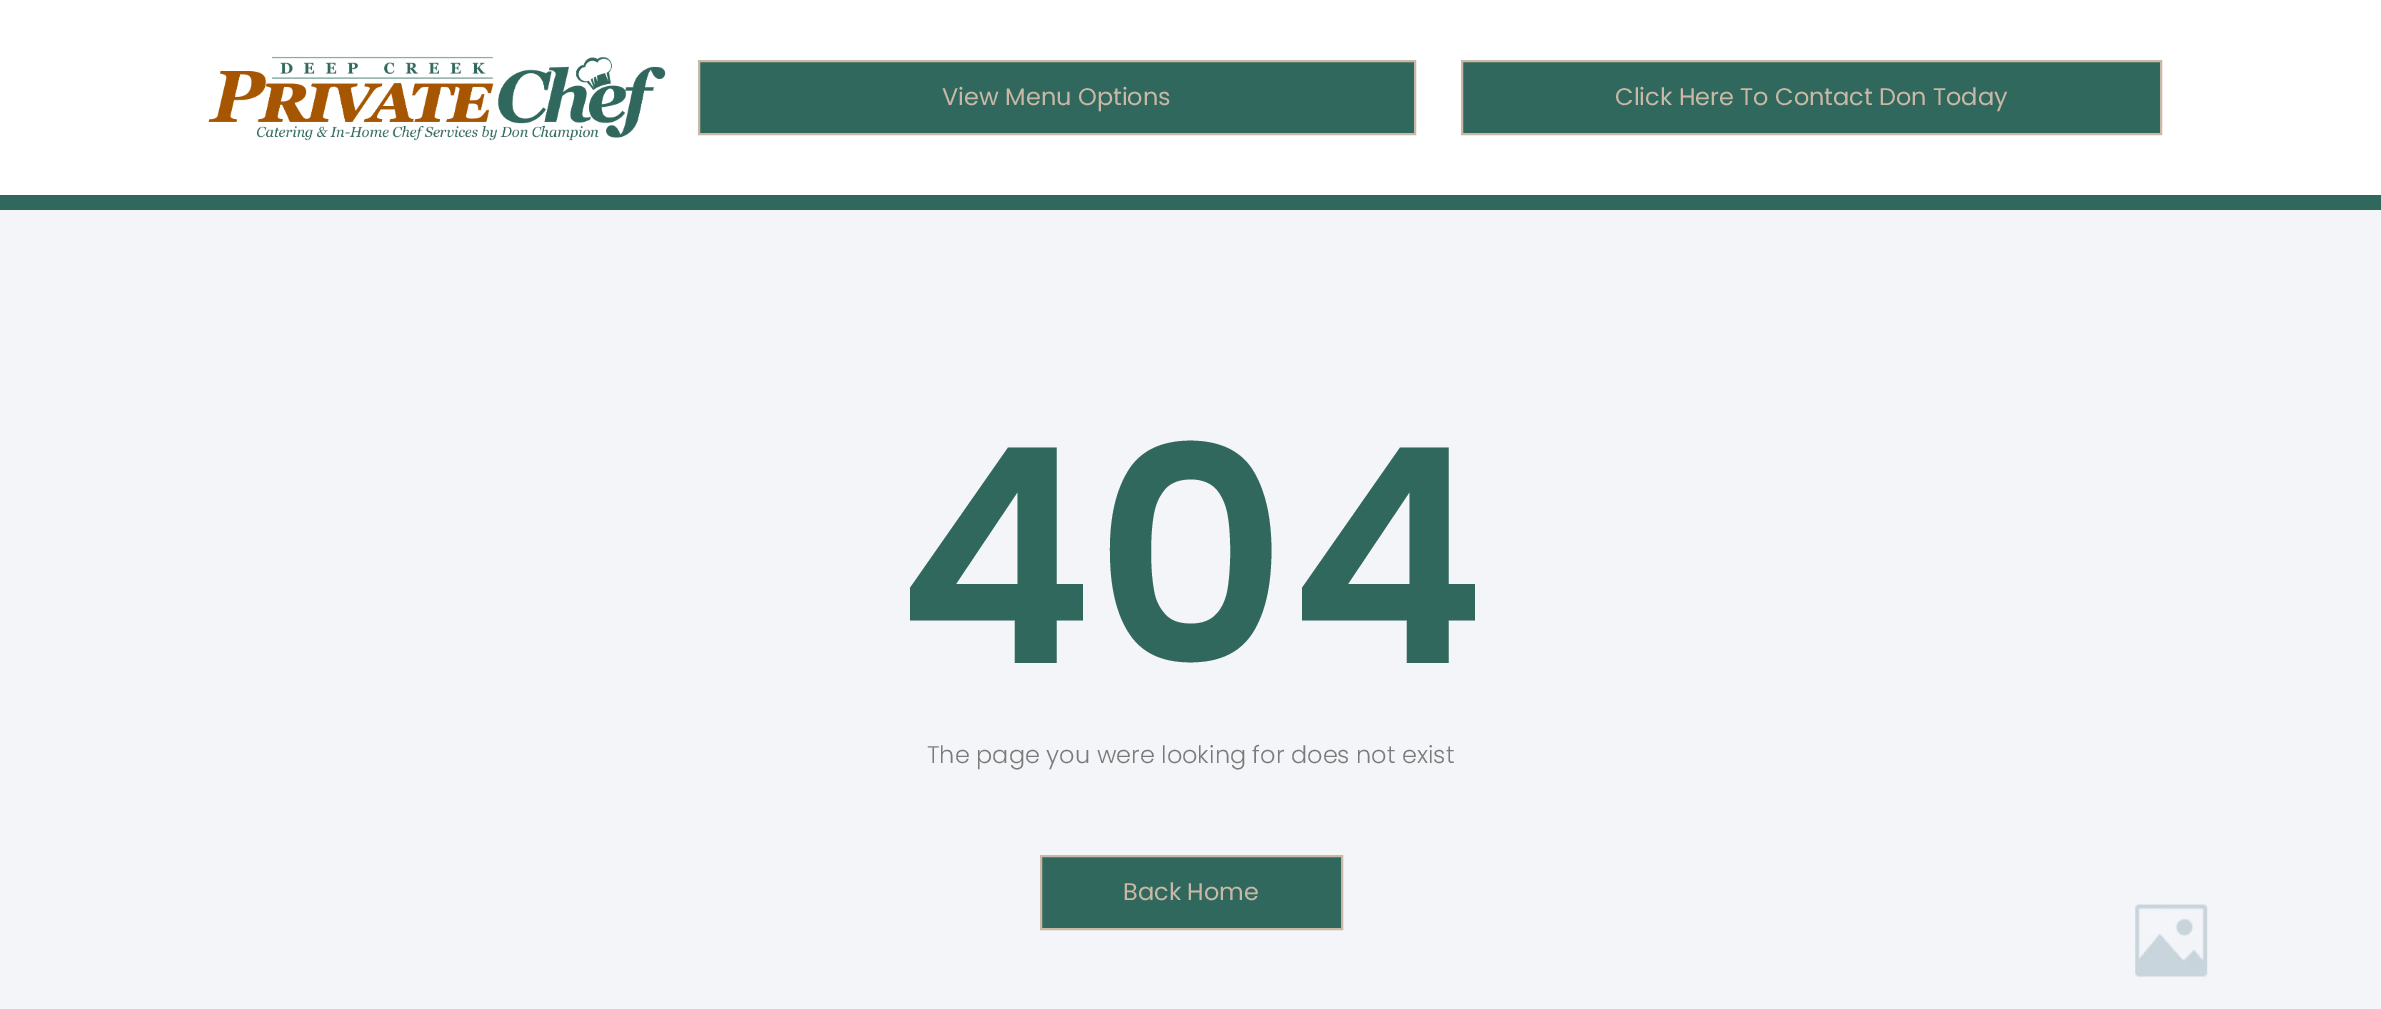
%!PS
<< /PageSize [2381 1009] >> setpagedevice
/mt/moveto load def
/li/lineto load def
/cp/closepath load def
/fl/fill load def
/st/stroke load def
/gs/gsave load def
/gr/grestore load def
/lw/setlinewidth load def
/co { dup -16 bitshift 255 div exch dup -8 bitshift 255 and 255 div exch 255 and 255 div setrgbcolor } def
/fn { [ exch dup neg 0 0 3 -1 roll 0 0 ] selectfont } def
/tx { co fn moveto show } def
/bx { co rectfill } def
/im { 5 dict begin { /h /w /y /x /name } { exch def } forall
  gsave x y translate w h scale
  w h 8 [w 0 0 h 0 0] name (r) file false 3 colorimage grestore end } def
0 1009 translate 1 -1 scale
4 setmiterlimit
0 0 2381 1009 16#FFFFFF bx
0 195 2381 15 16#31685D bx
(media/1.raw) 208 56 458 85 im
699 61 mt 1415 61 li 1415 134 li 699 134 li cp gs fl gr
16#C9B8A6 co
2 lw
st
16#31685D co
1462 61 mt 2161 61 li 2161 134 li 1462 134 li cp gs fl gr
16#C9B8A6 co
st
0 210 2381 799 16#F3F5F8 bx
(media/2.raw) 2134 904 74 74 im
16#31685D co
1041 856 mt 1342 856 li 1342 929 li 1041 929 li cp gs fl gr
16#C9B8A6 co
st
(View Menu Options) 942 105 /Poppins-Regular 24 16#C9B8A6 tx
(Click Here To Contact Don Today) 1615 105 /Poppins-Regular 24 16#C9B8A6 tx
(404) 896 663 /Poppins-SemiBold 300 16#31685D tx
(The page you were looking for does not exist) 927 763 /Poppins-Light 24 16#7A7A7A tx
(Back Home) 1123 900 /Poppins-Regular 24 16#C9B8A6 tx
showpage
